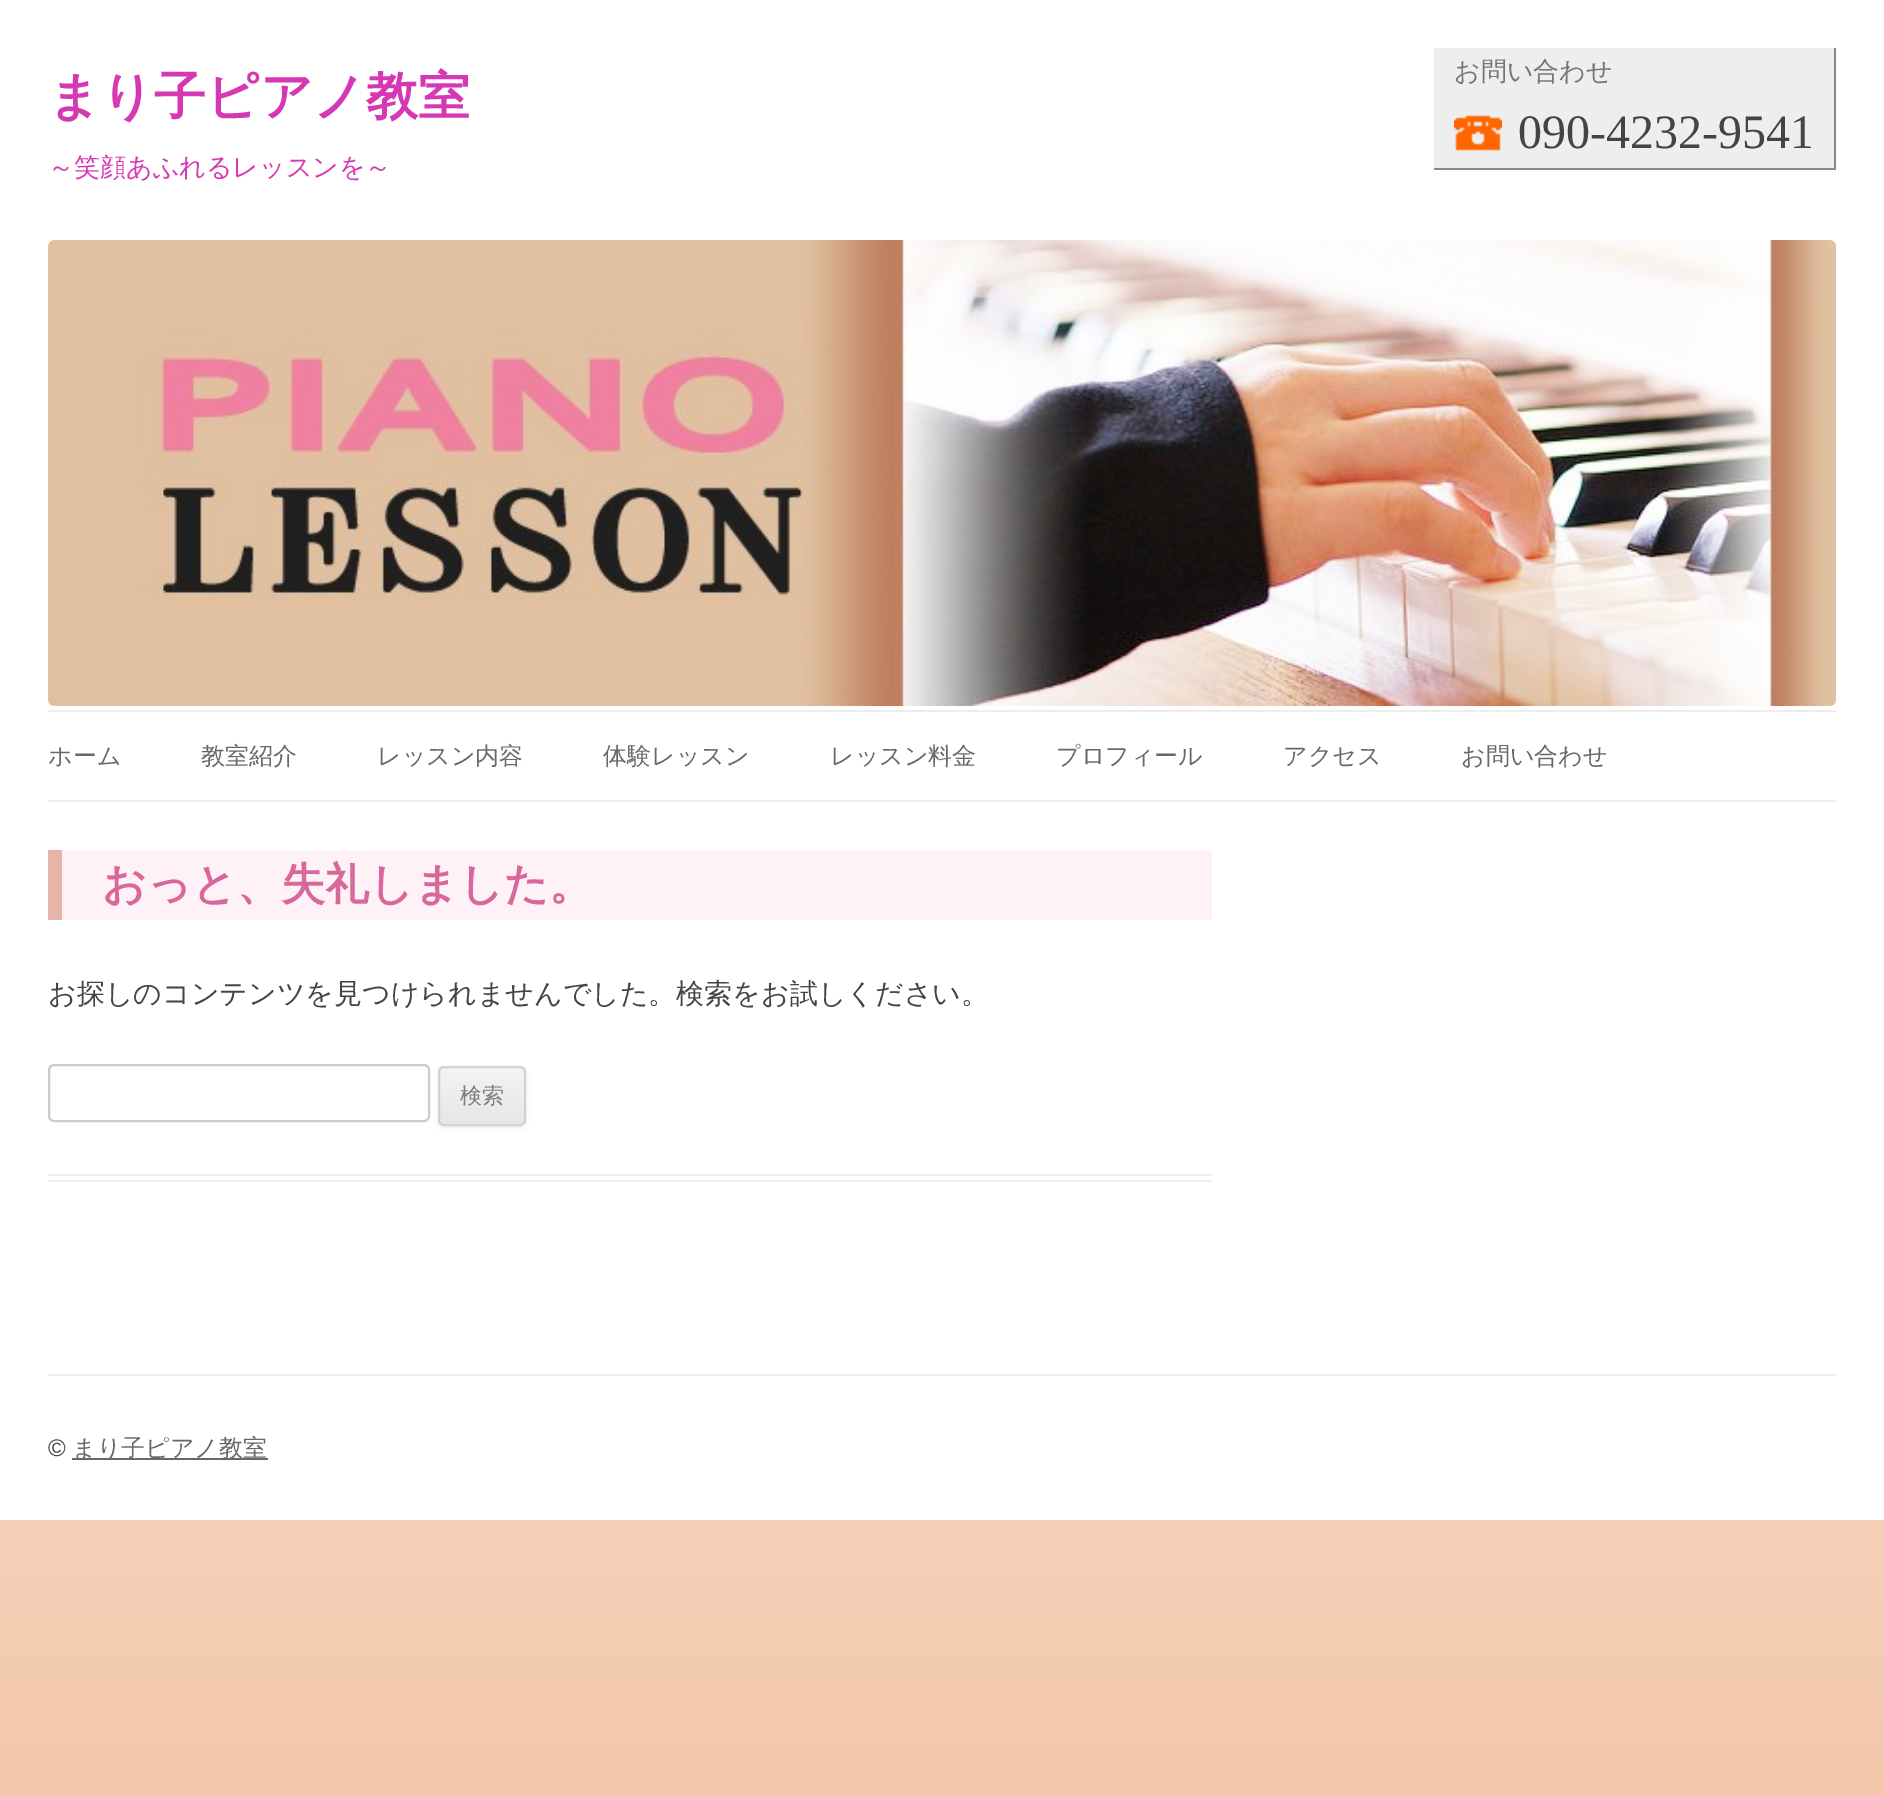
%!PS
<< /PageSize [1884 1795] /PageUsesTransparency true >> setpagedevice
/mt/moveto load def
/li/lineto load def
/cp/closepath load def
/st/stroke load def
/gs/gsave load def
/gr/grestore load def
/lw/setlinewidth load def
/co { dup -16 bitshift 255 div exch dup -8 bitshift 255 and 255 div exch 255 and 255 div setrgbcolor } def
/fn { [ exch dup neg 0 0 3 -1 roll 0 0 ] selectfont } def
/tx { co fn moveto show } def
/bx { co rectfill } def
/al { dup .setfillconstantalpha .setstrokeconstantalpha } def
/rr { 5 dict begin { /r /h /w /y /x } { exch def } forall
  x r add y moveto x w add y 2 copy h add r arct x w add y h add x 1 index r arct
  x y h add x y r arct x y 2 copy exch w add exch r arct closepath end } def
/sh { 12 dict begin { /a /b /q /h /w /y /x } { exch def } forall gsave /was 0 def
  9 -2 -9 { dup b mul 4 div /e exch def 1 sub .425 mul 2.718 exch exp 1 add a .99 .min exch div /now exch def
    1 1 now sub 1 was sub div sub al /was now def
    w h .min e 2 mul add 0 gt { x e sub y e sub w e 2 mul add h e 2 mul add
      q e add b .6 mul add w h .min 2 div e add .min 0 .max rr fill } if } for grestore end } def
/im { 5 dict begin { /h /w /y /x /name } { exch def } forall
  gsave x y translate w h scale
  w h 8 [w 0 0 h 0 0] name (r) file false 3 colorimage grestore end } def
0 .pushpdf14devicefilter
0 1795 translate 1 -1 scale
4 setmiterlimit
0 0 1884 1795 16#FFFFFF bx
(media/1.raw) 0 1520 1884 275 im
1434 48 400 120 16#EEEEEE bx
1834 48 2 122 16#888888 bx
1434 168 402 2 16#888888 bx
(media/2.raw) 1454 115 48 36 im
(media/3.raw) 48 240 1788 466 im
48 710 1788 2 16#EDEDED bx
48 800 1788 2 16#EDEDED bx
48 1174 1164 2 16#EDEDED bx
48 1180 1164 2 16#EDEDED bx
62 850 1150 70 16#FFF2F6 bx
48 850 14 70 16#E5B5A9 bx
16#CCCCCC co
2 lw
49 1065 380 56 5 rr st
16#404040 co
438 1068 88 60 6 2 .1 sh
gs
438 1066 88 60 6 rr clip newpath
gs 438 1068 mt 526 1068 li 526 1124 li 438 1124 li cp clip newpath
<< /ShadingType 2 /ColorSpace /DeviceRGB /Coords [482 1068 482 1124] /Extend [true true] /Function << /FunctionType 2 /Domain [0 1] /C0 [.957 .957 .957] /C1 [.902 .902 .902] /N 1 >> >> shfill gr
gr
16#D2D2D2 co
439 1067 86 58 5 rr st
48 1374 1788 2 16#EDEDED bx
72 1458 196 2 16#686868 bx
(まり子ピアノ教室) 48 114 /WenQuanYiZenHei-Bold 52 16#D637B3 tx
(～笑顔あふれるレッスンを～) 48 176 /WenQuanYiZenHei-Medium 26 16#D637B3 tx
(お問い合わせ) 1454 80 /WenQuanYiZenHei-Medium 26 16#757575 tx
(090-4232-9541) 1518 148 /LiberationSerif-Regular 48 16#444444 tx
(ホーム) 48 764 /WenQuanYiZenHei-Medium 24 16#686868 tx
(教室紹介) 201 764 /WenQuanYiZenHei-Medium 24 16#686868 tx
(レッスン内容) 377 764 /WenQuanYiZenHei-Medium 24 16#686868 tx
(体験レッスン) 603 764 /WenQuanYiZenHei-Medium 24 16#686868 tx
(レッスン料金) 830 764 /WenQuanYiZenHei-Medium 24 16#686868 tx
(プロフィール) 1056 764 /WenQuanYiZenHei-Medium 24 16#686868 tx
(アクセス) 1283 764 /WenQuanYiZenHei-Medium 24 16#686868 tx
(お問い合わせ) 1461 764 /WenQuanYiZenHei-Medium 24 16#686868 tx
(おっと、失礼しました。) 102 899 /WenQuanYiZenHei-Bold 44 16#D8689C tx
(お探しのコンテンツを見つけられませんでした。検索をお試しください。) 48 1003 /WenQuanYiZenHei-Medium 28 16#444444 tx
(検索) 460 1103 /WenQuanYiZenHei-Medium 22 16#7C7C7C tx
(©) 48 1456 /LiberationSans-Regular 24 16#444444 tx
(まり子ピアノ教室) 72 1456 /WenQuanYiZenHei-Medium 24 16#686868 tx
.poppdf14devicefilter showpage
